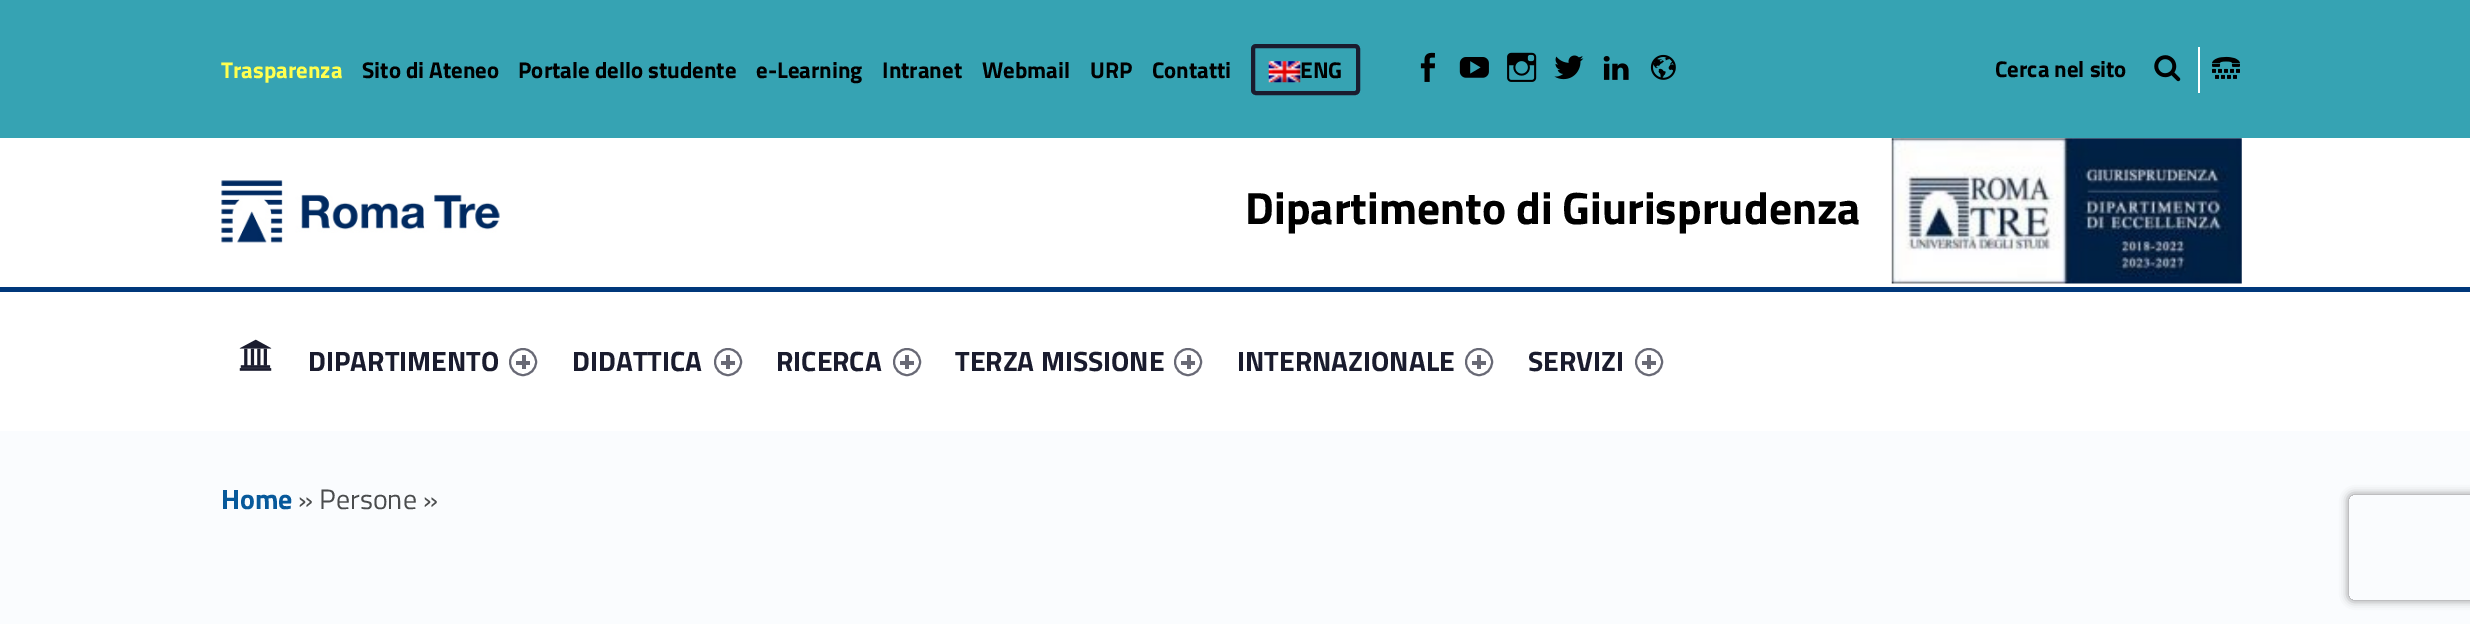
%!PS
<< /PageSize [2470 624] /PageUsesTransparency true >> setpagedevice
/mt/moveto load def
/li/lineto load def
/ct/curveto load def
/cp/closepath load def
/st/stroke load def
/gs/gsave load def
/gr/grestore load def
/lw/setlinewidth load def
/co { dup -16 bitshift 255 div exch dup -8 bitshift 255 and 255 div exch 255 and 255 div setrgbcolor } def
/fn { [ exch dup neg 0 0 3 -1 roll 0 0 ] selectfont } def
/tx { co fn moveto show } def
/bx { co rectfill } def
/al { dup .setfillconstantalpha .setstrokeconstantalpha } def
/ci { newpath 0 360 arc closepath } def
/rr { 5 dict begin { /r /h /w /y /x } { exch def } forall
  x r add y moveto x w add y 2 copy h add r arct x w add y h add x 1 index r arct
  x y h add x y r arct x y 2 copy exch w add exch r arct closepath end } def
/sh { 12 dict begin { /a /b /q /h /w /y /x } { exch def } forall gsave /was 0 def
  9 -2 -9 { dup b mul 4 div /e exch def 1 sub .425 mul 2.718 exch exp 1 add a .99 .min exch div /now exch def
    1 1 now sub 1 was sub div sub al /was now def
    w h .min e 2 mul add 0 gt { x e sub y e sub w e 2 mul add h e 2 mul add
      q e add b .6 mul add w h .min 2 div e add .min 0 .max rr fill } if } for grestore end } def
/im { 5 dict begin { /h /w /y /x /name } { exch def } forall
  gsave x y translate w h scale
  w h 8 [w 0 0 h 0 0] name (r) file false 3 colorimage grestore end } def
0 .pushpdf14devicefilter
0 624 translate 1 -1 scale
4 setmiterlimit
0 0 2470 624 16#FAFCFE bx
0 138 2470 293 16#FFFFFF bx
0 0 2470 138 16#36A3B3 bx
16#1A1C2E co
4 lw
1253 46 105 47 3 rr st
(media/1.raw) 1268 61 33 22 im
(media/2.raw) 1420 52 15 30 im
(media/3.raw) 1459 57 30 21 im
(media/4.raw) 1507 52 30 30 im
(media/5.raw) 1554 55 30 25 im
(media/6.raw) 1603 56 26 24 im
(media/7.raw) 1650 54 26 26 im
(media/8.raw) 2154 55 27 27 im
2198 47 2 46 16#FFFFFF bx
(media/9.raw) 2212 56 28 23 im
(media/10.raw) 221 180 279 63 im
(media/11.raw) 1891 138 351 146 im
(media/12.raw) 239 339 33 32 im
16#686975 co
2 lw
523 362 13 ci st
516 361 14 4 16#686975 bx
522 355 4 14 16#686975 bx
728 362 13 ci st
721 361 14 4 16#686975 bx
726 355 4 14 16#686975 bx
907 362 13 ci st
900 361 14 4 16#686975 bx
905 355 4 14 16#686975 bx
1188 362 13 ci st
1181 361 14 4 16#686975 bx
1187 355 4 14 16#686975 bx
1479 362 13 ci st
1472 361 14 4 16#686975 bx
1477 355 4 14 16#686975 bx
1649 362 13 ci st
1642 361 14 4 16#686975 bx
1647 355 4 14 16#686975 bx
0 287 2470 5 16#00387B bx
gs
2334 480 mt 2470 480 li 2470 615 li 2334 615 li cp 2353 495 mt 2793 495 li 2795 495 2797 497 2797 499 ct 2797 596 li 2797 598 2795 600 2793 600 ct 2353 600 li 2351 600 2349 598 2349 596 ct 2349 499 li 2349 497 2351 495 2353 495 ct cp eoclip newpath
16#808080 co
2349 495 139 105 4 4.5 1 sh
gr
(Trasparenza) 221 78 /TitilliumWeb-Bold 22.75 16#FFFF4F tx
(Sito di Ateneo) 362 78 /TitilliumWeb-Bold 22.75 16#000000 tx
(Portale dello studente) 518 78 /TitilliumWeb-Bold 22.75 16#000000 tx
(e-Learning) 756 78 /TitilliumWeb-Bold 22.75 16#000000 tx
(Intranet) 882 78 /TitilliumWeb-Bold 22.75 16#000000 tx
(Webmail) 982 78 /TitilliumWeb-Bold 22.75 16#000000 tx
(URP) 1090 78 /TitilliumWeb-Bold 22.75 16#000000 tx
(Contatti) 1152 78 /TitilliumWeb-Bold 22.75 16#000000 tx
(ENG) 1300 78 /TitilliumWeb-Bold 22.75 16#000000 tx
(Cerca nel sito) 1995 77 /TitilliumWeb-Bold 22.75 16#000000 tx
(Dipartimento di Giurisprudenza) 1245 224 /TitilliumWeb-Bold 45.4 16#000000 tx
(DIPARTIMENTO) 308 371 /TitilliumWeb-Bold 28 16#1A1C2E tx
(DIDATTICA) 572 371 /TitilliumWeb-Bold 28 16#1A1C2E tx
(RICERCA) 776 371 /TitilliumWeb-Bold 28 16#1A1C2E tx
(TERZA MISSIONE) 955 371 /TitilliumWeb-Bold 28 16#1A1C2E tx
(INTERNAZIONALE) 1237 371 /TitilliumWeb-Bold 28 16#1A1C2E tx
(SERVIZI) 1528 371 /TitilliumWeb-Bold 28 16#1A1C2E tx
(Home) 221 509 /TitilliumWeb-Bold 28 16#07599B tx
(» Persone ») 298 509 /TitilliumWeb-Regular 28 16#4A4C4D tx
.poppdf14devicefilter showpage
